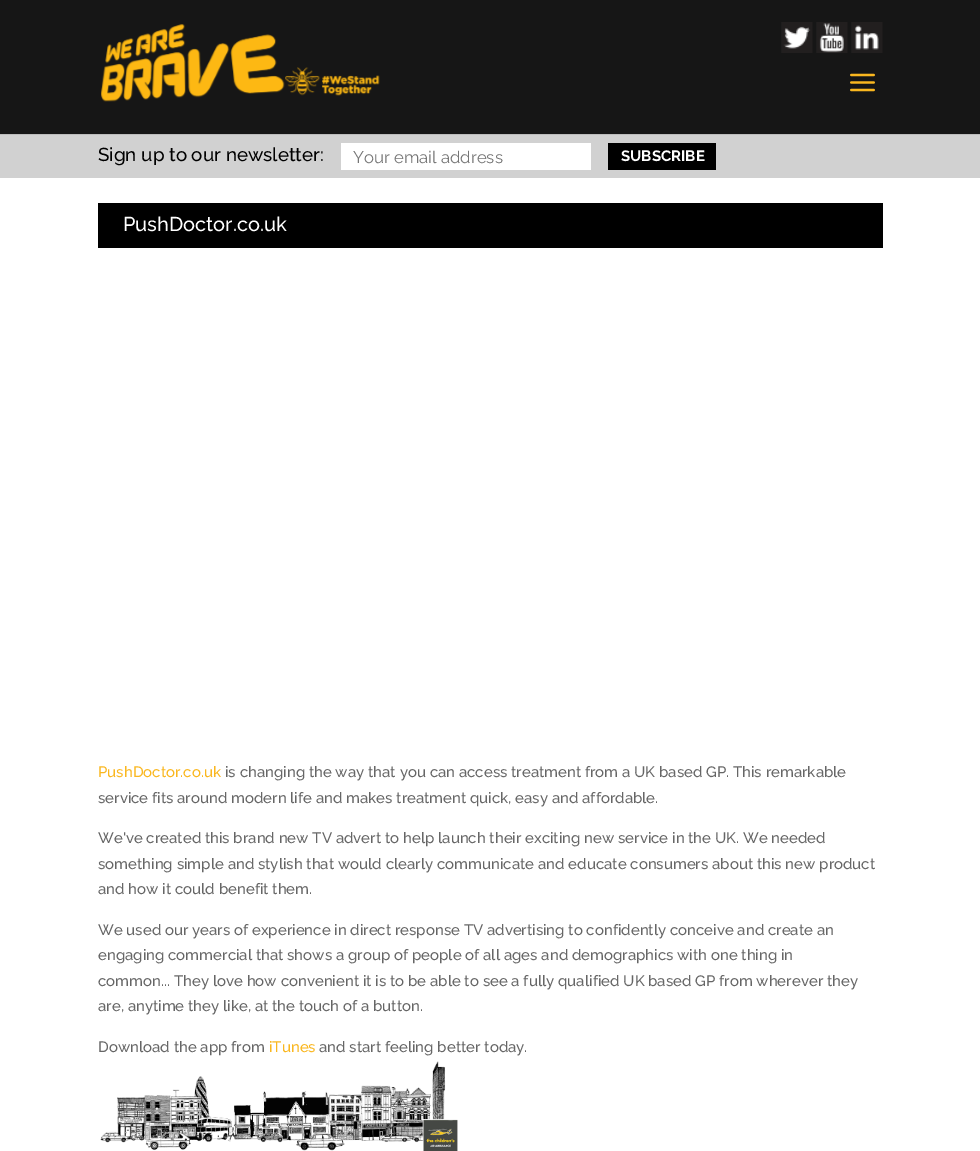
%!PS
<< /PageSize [980 1151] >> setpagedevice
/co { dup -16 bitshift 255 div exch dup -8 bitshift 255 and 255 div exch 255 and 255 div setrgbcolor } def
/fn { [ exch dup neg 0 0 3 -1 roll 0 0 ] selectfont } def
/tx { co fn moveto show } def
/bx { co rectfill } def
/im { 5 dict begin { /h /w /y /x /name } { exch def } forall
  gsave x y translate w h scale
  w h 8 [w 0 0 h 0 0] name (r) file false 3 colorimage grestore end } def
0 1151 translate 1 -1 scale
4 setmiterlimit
0 0 980 1151 16#FFFFFF bx
0 134 980 1 16#BCBCBC bx
0 0 980 134 16#161616 bx
(media/1.raw) 101 24 279 78 im
(media/2.raw) 781 22 32 31 im
(media/3.raw) 816 22 32 31 im
(media/4.raw) 851 22 32 31 im
(media/5.raw) 850 73 25 19 im
0 135 980 43 16#D1D1D1 bx
341 143 250 27 16#FFFFFF bx
608 143 108 27 16#000000 bx
98 203 785 45 16#000000 bx
(media/6.raw) 100 1061 358 90 im
(Sign up to our newsletter:) 98 161 /Raleway-Medium 18.75 16#000000 tx
(Your email address) 353 163 /Raleway-Regular 16.75 16#757575 tx
(SUBSCRIBE) 621 161 /Raleway-Bold 15 16#FFFFFF tx
(PushDoctor.co.uk) 123 231 /Raleway-Medium 20 16#FFFFFF tx
(PushDoctor.co.uk) 98 777 /Raleway-Medium 15 16#FAB71F tx
(is changing the way that you can access treatment from a UK based GP. This remarkable) 225 777 /Raleway-Medium 15 16#666666 tx
(service fits around modern life and makes treatment quick, easy and affordable.) 98 803 /Raleway-Medium 15 16#666666 tx
(We've created this brand new TV advert to help launch their exciting new service in the UK. We needed) 98 843 /Raleway-Medium 15 16#666666 tx
(something simple and stylish that would clearly communicate and educate consumers about this new product) 98 869 /Raleway-Medium 15 16#666666 tx
(and how it could benefit them.) 98 894 /Raleway-Medium 15 16#666666 tx
(We used our years of experience in direct response TV advertising to confidently conceive and create an) 98 935 /Raleway-Medium 15 16#666666 tx
(engaging commercial that shows a group of people of all ages and demographics with one thing in) 98 960 /Raleway-Medium 15 16#666666 tx
(common... They love how convenient it is to be able to see a fully qualified UK based GP from wherever they) 98 986 /Raleway-Medium 15 16#666666 tx
(are, anytime they like, at the touch of a button.) 98 1011 /Raleway-Medium 15 16#666666 tx
(Download the app from) 98 1052 /Raleway-Medium 15 16#666666 tx
(iTunes) 269 1052 /Raleway-Medium 15 16#FAB71F tx
(and start feeling better today.) 319 1052 /Raleway-Medium 15 16#666666 tx
showpage
